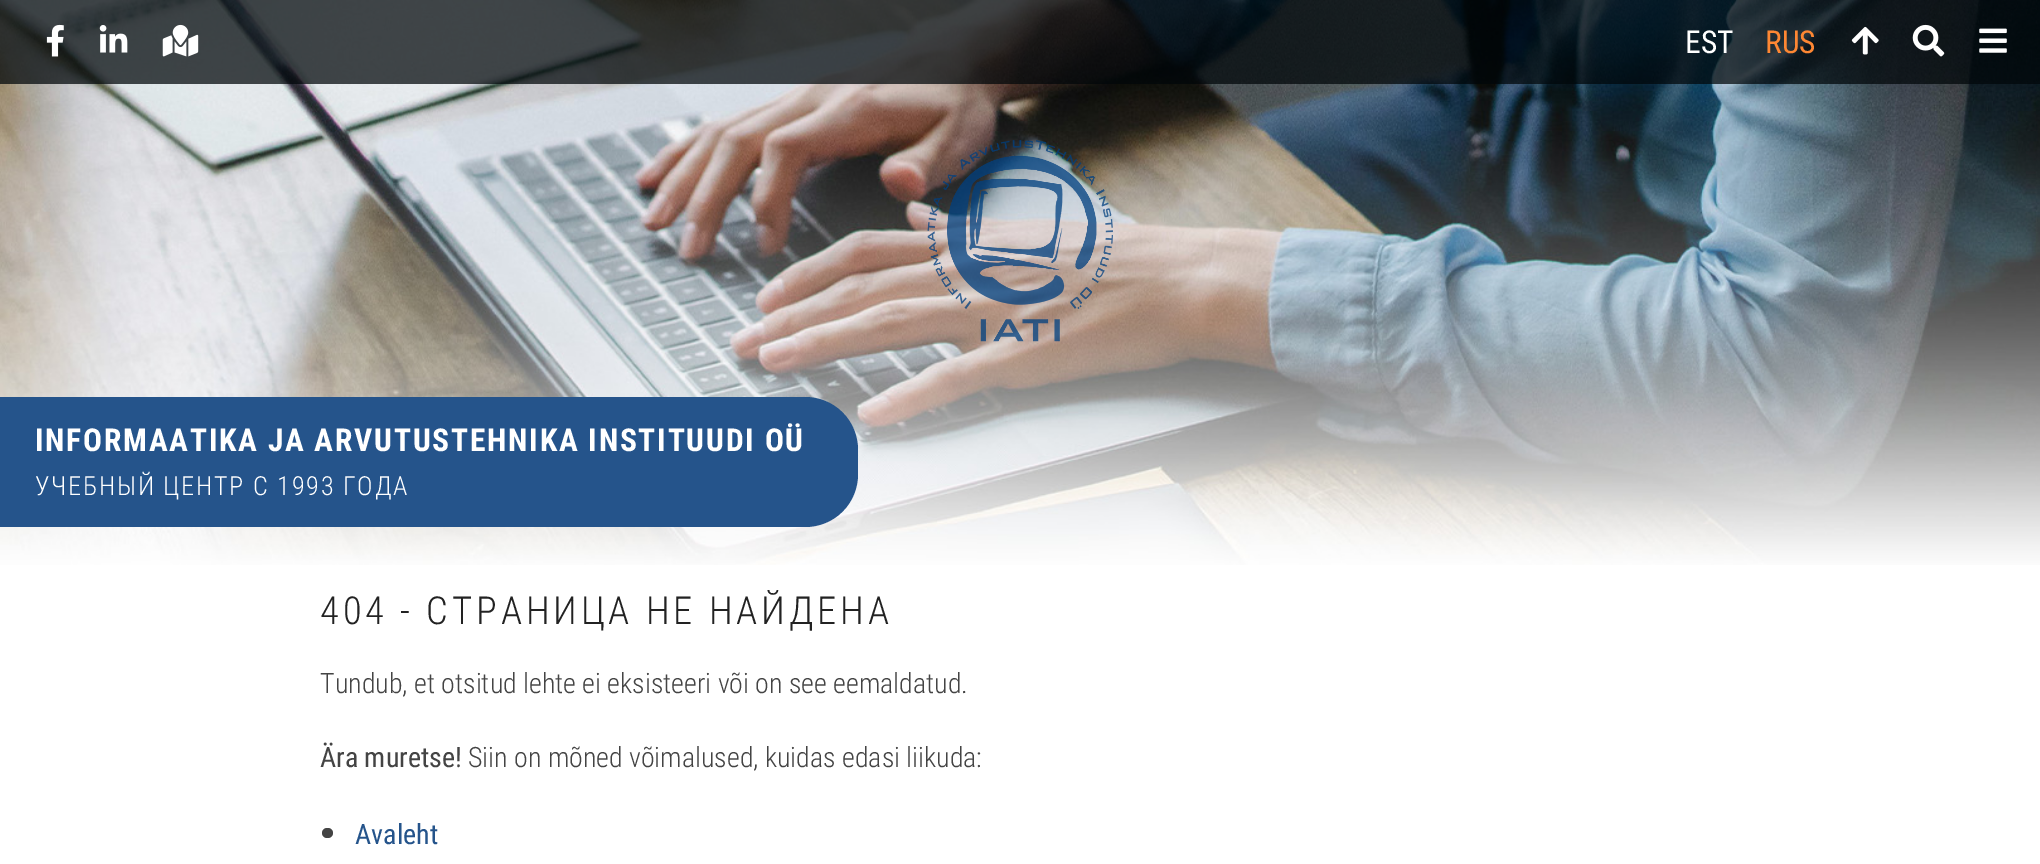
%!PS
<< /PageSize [2040 864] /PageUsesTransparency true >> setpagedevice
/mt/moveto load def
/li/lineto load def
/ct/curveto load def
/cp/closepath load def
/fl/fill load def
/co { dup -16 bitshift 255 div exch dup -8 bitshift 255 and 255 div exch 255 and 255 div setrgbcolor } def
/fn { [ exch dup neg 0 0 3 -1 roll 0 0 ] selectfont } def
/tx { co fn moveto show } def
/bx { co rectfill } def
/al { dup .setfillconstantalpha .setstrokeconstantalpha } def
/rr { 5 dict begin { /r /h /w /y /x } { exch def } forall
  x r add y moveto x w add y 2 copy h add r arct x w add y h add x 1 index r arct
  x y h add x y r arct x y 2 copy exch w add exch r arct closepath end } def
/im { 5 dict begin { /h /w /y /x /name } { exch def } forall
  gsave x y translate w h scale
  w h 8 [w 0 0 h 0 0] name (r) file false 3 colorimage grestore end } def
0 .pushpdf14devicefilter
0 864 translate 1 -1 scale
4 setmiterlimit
0 0 2040 864 16#FFFFFF bx
(media/1.raw) 0 0 2040 565 im
0.73 al
0 0 2040 84 16#000609 bx
1 al
(media/2.raw) 46 24 18 33 im
(media/3.raw) 99 25 29 28 im
(media/4.raw) 162 24 37 33 im
(media/5.raw) 1851 26 28 29 im
(media/6.raw) 1912 24 33 33 im
(media/7.raw) 1979 28 28 25 im
(media/8.raw) 927 140 186 202 im
16#25548B co
0 397 mt 805 397 li 834.5 397 858 420.5 858 450 ct 858 474 li 858 503.5 834.5 527 805 527 ct 0 527 li cp fl
16#444444 co
322 828 11 10 5 rr fl
(EST) 1685 53 /RobotoCondensed-Regular 31.5 16#FFFFFF tx
(RUS) 1765 53 /RobotoCondensed-Regular 31.5 16#FE8733 tx
/RobotoCondensed-Bold 31.5 fn
16#FFFFFF co
35 451 mt 1.75 0 (INFORMAATIKA JA ARVUTUSTEHNIKA INSTITUUDI OÜ) ashow
/RobotoCondensed-Light 26.25 fn
35 495 mt 1.75 0 (УЧЕБНЫЙ ЦЕНТР С 1993 ГОДА) ashow
/RobotoCondensed-Light 38.5 fn
16#222222 co
320 624 mt 3.85 0 (404 - СТРАНИЦА НЕ НАЙДЕНА) ashow
(Tundub, et otsitud lehte ei eksisteeri või on see eemaldatud.) 320 693 /RobotoCondensed-Light 28 16#444444 tx
(Ära muretse!) 320 767 /RobotoCondensed-Regular 28 16#444444 tx
(Siin on mõned võimalused, kuidas edasi liikuda:) 468 767 /RobotoCondensed-Light 28 16#444444 tx
(Avaleht) 355 844 /RobotoCondensed-Regular 28 16#25548B tx
.poppdf14devicefilter showpage
